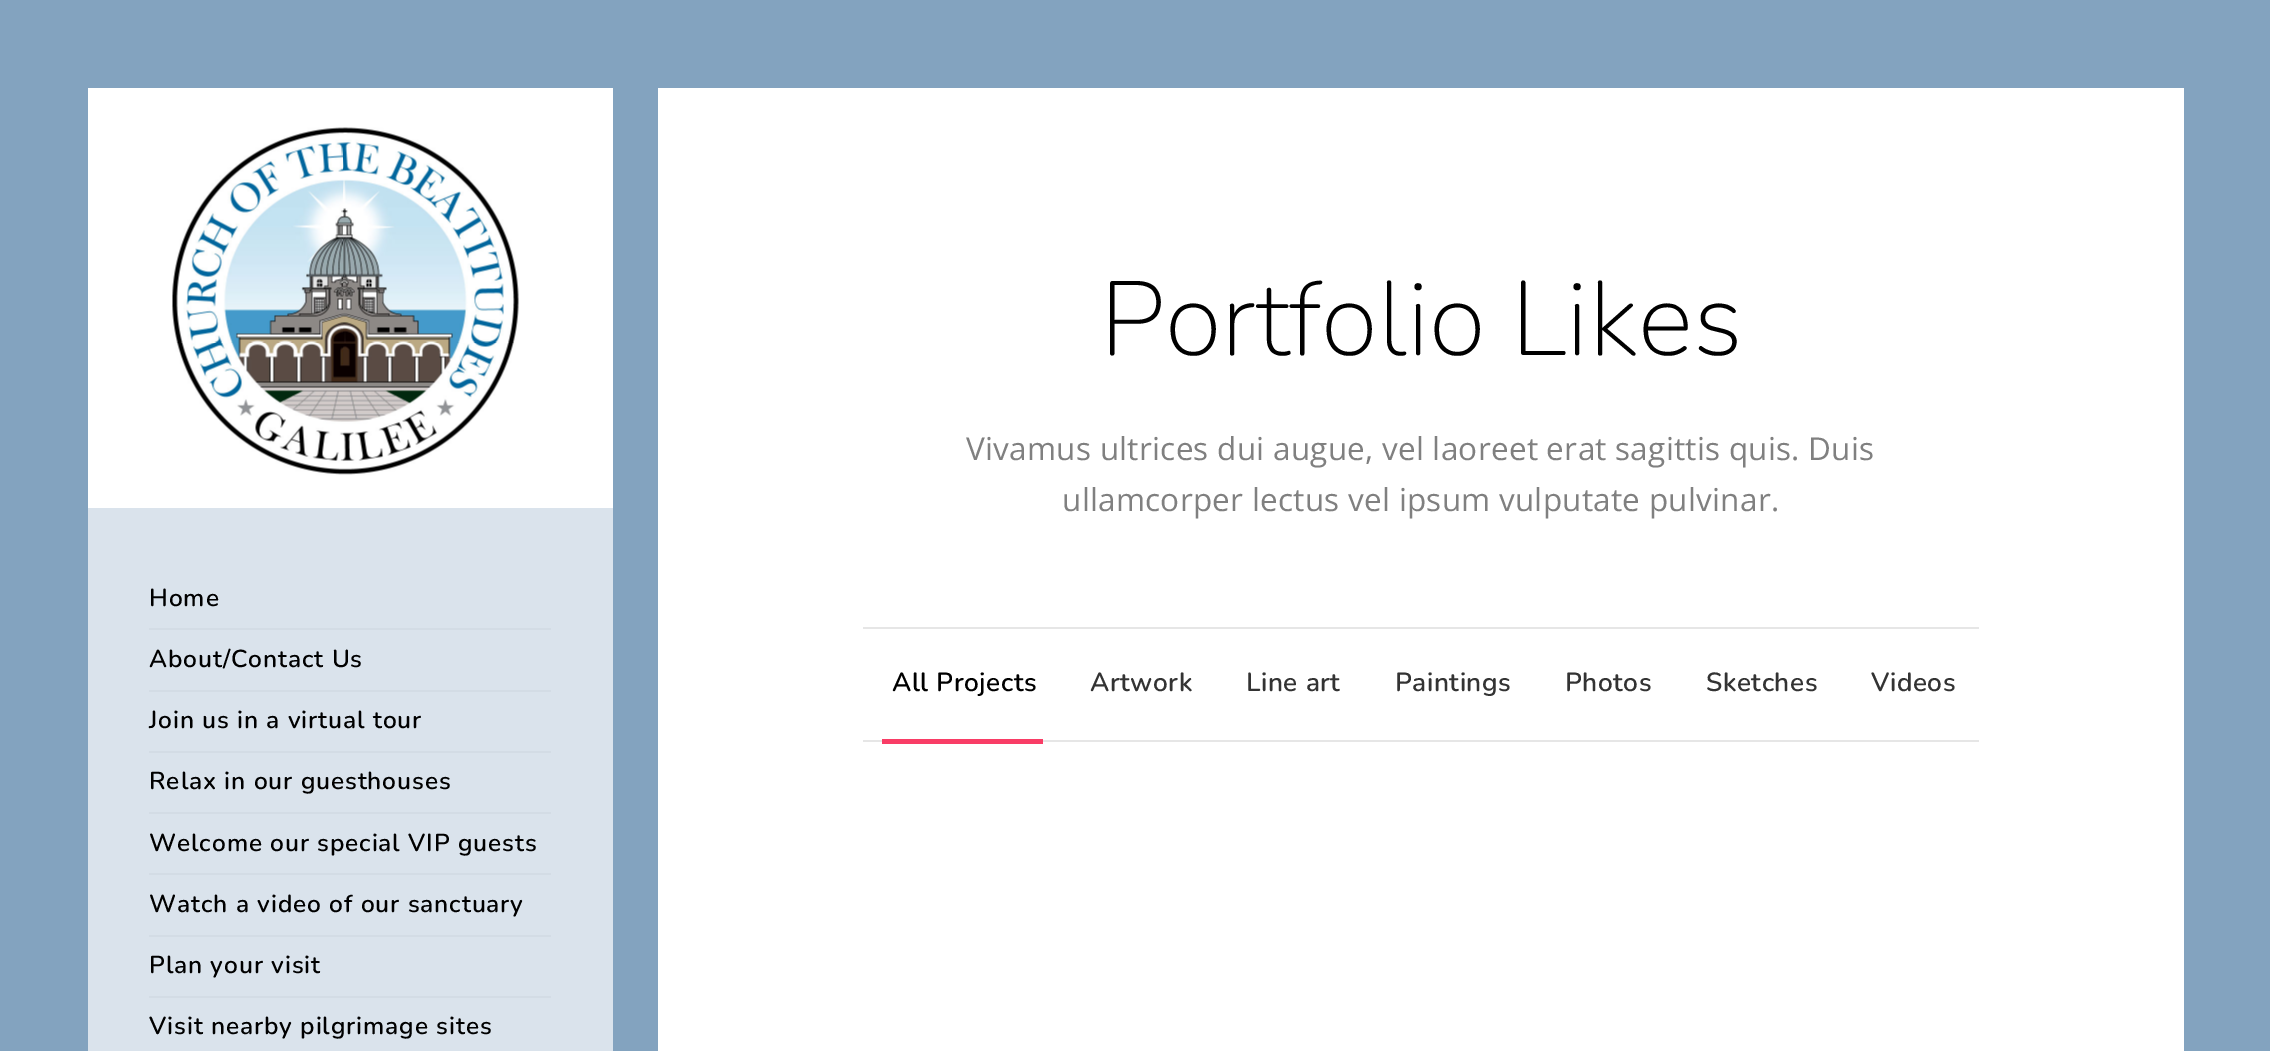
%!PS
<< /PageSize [2270 1051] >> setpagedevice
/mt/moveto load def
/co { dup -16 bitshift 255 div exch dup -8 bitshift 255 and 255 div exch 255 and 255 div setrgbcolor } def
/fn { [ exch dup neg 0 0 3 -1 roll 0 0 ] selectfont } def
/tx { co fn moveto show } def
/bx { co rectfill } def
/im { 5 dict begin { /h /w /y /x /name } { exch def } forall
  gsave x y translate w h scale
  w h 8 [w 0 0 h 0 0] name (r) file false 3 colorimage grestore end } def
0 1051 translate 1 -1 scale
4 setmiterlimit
0 0 2270 1051 16#83A3BF bx
658 88 1526 963 16#FFFFFF bx
863 627 1116 2 16#E6E6E6 bx
863 740 1116 2 16#E6E6E6 bx
882 739 161 5 16#F93D66 bx
88 508 525 543 16#DAE3EC bx
(media/1.raw) 88 88 525 420 im
149 628 402 2 16#D3DCE5 bx
149 690 402 2 16#D3DCE5 bx
149 751 402 2 16#D3DCE5 bx
149 812 402 2 16#D3DCE5 bx
149 873 402 2 16#D3DCE5 bx
149 935 402 2 16#D3DCE5 bx
149 996 402 2 16#D3DCE5 bx
(Portfolio Likes) 1100 355 /Nunito-ExtraLight 105 16#000000 tx
/OpenSans-Regular 31.5 fn
16#808080 co
966 460 mt .25 0 (Vivamus ultrices dui augue, vel laoreet erat sagittis quis. Duis) ashow
1062 511 mt .25 0 (ullamcorper lectus vel ipsum vulputate pulvinar.) ashow
/Nunito-SemiBold 26.25 fn
16#000000 co
892 691 mt .5 0 (All Projects) ashow
16#333333 co
1090 691 mt .5 0 (Artwork) ashow
1246 691 mt .5 0 (Line art) ashow
1395 691 mt .5 0 (Paintings) ashow
1565 691 mt .5 0 (Photos) ashow
1706 691 mt .5 0 (Sketches) ashow
1871 691 mt .5 0 (Videos) ashow
/Nunito-SemiBold 24.5 fn
16#000000 co
149 606 mt .9 0 (Home) ashow
149 667 mt .9 0 (About/Contact Us) ashow
149 728 mt .9 0 (Join us in a virtual tour) ashow
149 789 mt .9 0 (Relax in our guesthouses) ashow
149 851 mt .9 0 (Welcome our special VIP guests) ashow
149 912 mt .9 0 (Watch a video of our sanctuary) ashow
149 973 mt .9 0 (Plan your visit) ashow
149 1034 mt .9 0 (Visit nearby pilgrimage sites) ashow
showpage
